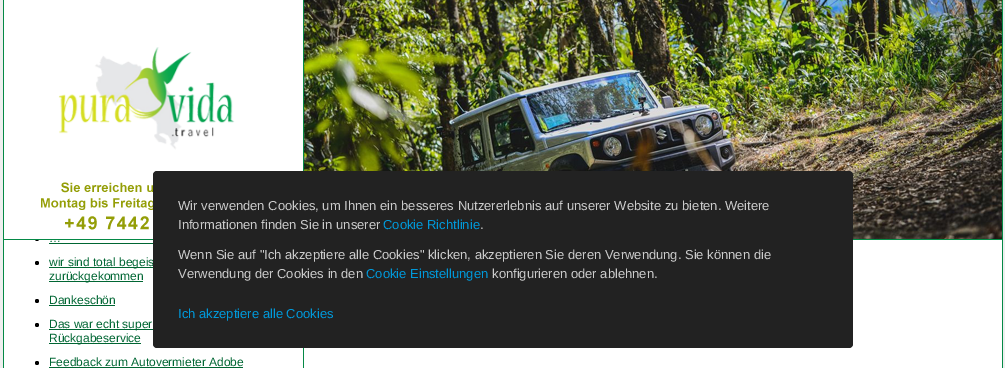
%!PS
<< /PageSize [1005 368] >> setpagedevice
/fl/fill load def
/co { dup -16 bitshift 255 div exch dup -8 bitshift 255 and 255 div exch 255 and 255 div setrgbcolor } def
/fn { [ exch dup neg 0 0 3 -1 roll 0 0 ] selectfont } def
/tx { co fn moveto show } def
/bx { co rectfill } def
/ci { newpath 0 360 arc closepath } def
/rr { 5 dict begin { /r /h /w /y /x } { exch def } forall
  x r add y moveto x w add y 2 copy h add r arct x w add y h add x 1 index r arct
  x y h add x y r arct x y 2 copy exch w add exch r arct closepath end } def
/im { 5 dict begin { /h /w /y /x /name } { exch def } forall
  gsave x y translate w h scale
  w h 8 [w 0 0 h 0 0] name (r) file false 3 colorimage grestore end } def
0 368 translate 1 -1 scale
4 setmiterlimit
0 0 1005 368 16#EFEFEF bx
4 0 998 368 16#FFFFFF bx
16#000000 co
37 239 2 ci fl
(media/1.raw) 9 0 993 239 im
1002 0 1 368 16#058946 bx
3 0 1 368 16#058946 bx
3 239 1000 1 16#058946 bx
(media/2.raw) 58 47 177 103 im
303 348 1 20 16#058946 bx
49 243 104 1 16#006633 bx
16#000000 co
37 263 2 ci fl
49 267 104 1 16#006633 bx
49 281 94 1 16#006633 bx
16#000000 co
37 301 2 ci fl
49 305 66 1 16#006633 bx
16#000000 co
37 325 2 ci fl
49 329 104 1 16#006633 bx
49 343 92 1 16#006633 bx
16#000000 co
37 363 2 ci fl
49 367 194 1 16#006633 bx
(…) 49 242 /LiberationSans-Regular 12 16#006633 tx
(wir sind total begeis) 49 266 /LiberationSans-Regular 12 16#006633 tx
(zurückgekommen) 49 280 /LiberationSans-Regular 12 16#006633 tx
(Dankeschön) 49 304 /LiberationSans-Regular 12 16#006633 tx
(Das war echt super) 49 328 /LiberationSans-Regular 12 16#006633 tx
(Rückgabeservice) 49 342 /LiberationSans-Regular 12 16#006633 tx
(Feedback zum Autovermieter Adobe) 49 366 /LiberationSans-Regular 12 16#006633 tx
16#222222 co
153 171 700 177 4 rr fl
(Wir verwenden Cookies, um Ihnen ein besseres Nutzererlebnis auf unserer Website zu bieten. Weitere) 178 210 /LiberationSans-Regular 13 16#CCCCCC tx
(Informationen finden Sie in unserer) 178 229 /LiberationSans-Regular 13 16#CCCCCC tx
(Cookie Richtlinie) 383 229 /LiberationSans-Regular 13 16#0099DA tx
(.) 480 229 /LiberationSans-Regular 13 16#CCCCCC tx
(Wenn Sie auf "Ich akzeptiere alle Cookies" klicken, akzeptieren Sie deren Verwendung. Sie können die) 178 259 /LiberationSans-Regular 13 16#CCCCCC tx
(Verwendung der Cookies in den) 178 278 /LiberationSans-Regular 13 16#CCCCCC tx
(Cookie Einstellungen) 366 278 /LiberationSans-Regular 13 16#0099DA tx
(konfigurieren oder ablehnen.) 492 278 /LiberationSans-Regular 13 16#CCCCCC tx
(Ich akzeptiere alle Cookies) 178 318 /LiberationSans-Regular 13 16#0099DA tx
showpage
